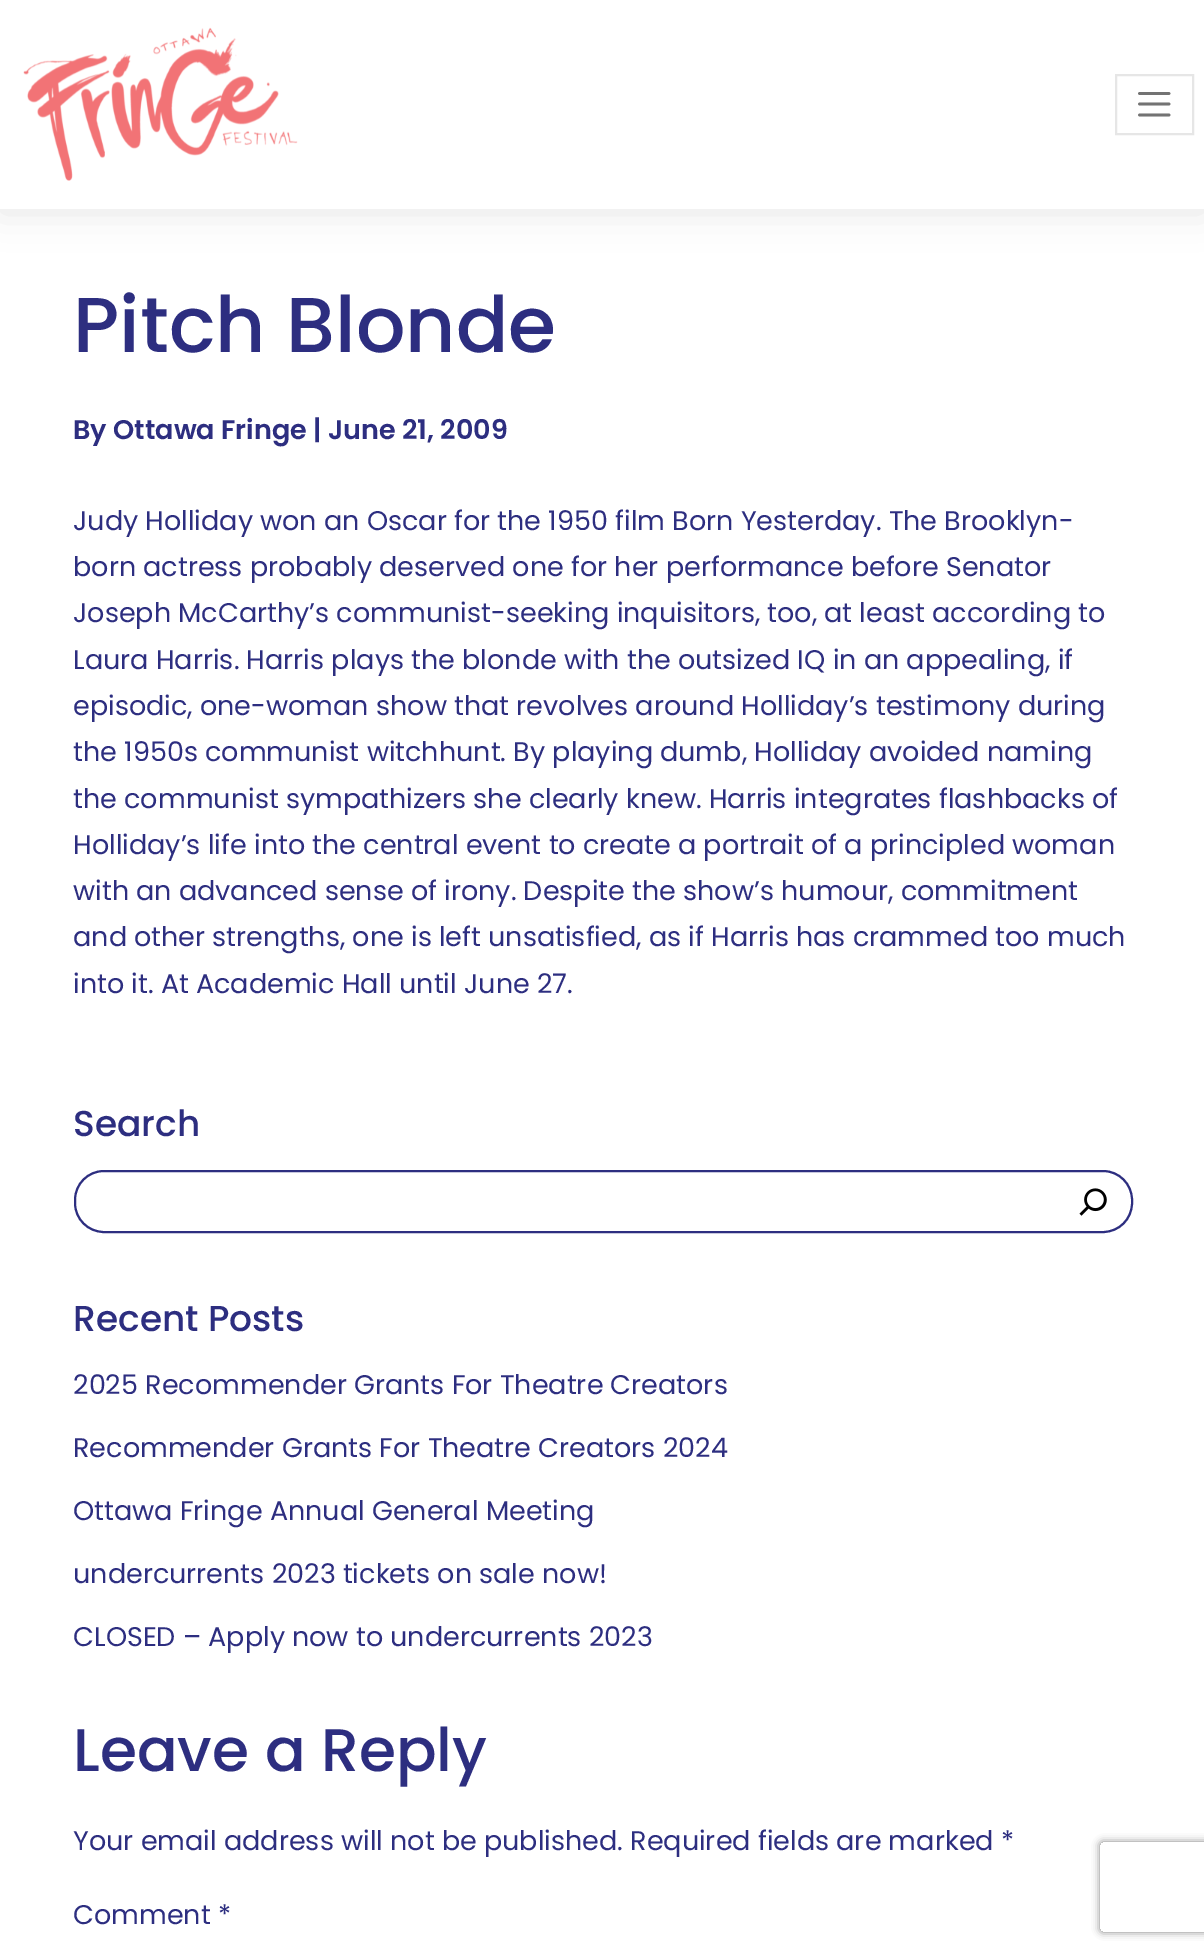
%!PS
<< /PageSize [1204 1952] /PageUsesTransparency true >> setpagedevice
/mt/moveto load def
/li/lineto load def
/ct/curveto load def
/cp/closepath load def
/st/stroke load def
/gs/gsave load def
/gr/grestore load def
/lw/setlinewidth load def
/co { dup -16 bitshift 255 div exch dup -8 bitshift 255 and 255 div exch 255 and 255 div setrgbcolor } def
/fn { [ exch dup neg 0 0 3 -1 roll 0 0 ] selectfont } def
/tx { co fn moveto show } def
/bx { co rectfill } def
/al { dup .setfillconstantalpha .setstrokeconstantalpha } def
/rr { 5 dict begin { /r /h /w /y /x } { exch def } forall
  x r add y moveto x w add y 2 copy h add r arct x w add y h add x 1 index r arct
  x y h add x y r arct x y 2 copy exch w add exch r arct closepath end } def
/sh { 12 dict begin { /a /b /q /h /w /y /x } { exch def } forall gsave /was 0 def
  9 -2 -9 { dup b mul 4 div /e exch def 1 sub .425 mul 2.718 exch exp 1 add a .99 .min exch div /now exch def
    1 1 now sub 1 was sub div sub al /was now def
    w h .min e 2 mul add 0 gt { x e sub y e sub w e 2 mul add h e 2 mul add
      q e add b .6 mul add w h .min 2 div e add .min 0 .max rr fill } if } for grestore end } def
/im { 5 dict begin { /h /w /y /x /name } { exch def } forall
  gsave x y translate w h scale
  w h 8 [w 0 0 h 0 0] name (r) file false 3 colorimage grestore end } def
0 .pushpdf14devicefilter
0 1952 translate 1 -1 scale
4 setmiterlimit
0 0 1204 1952 16#FFFFFF bx
16#000000 co
0 3 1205 209 0 18 .1 sh
0 0 1204 209 16#FFFFFF bx
(media/1.raw) 23 27 275 154 im
16#E6E6E6 co
2 lw
1116 75 77 59 rectstroke
16#737373 co
2.7 lw
1 setlinecap
1139.5 93.5 mt 1169 93.5 li 1139.5 104 mt 1169 104 li 1139.5 115 mt 1169 115 li st
16#2D2E80 co
2 lw
0 setlinecap
75 1171 1057 61 29 rr st
(media/2.raw) 1079 1188 28 28 im
gs
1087 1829 mt 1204 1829 li 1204 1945 li 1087 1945 li cp 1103 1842 mt 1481 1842 li 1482.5 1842 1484 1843.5 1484 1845 ct 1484 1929 li 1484 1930.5 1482.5 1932 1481 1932 ct 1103 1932 li 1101.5 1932 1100 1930.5 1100 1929 ct 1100 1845 li 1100 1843.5 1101.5 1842 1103 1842 ct cp eoclip newpath
16#808080 co
1100 1842 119 90 3 4 1 sh
gr
(Pitch Blonde) 73 352 /Poppins-Medium 77.75 16#2D2E80 tx
(By Ottawa Fringe | June 21, 2009) 73 439 /Poppins-SemiBold 27 16#2D2E80 tx
(Judy Holliday won an Oscar for the 1950 film Born Yesterday. The Brooklyn-) 73 530 /Poppins-Regular 27 16#2D2E80 tx
(born actress probably deserved one for her performance before Senator) 73 576 /Poppins-Regular 27 16#2D2E80 tx
(Joseph McCarthy’s communist-seeking inquisitors, too, at least according to) 73 622 /Poppins-Regular 27 16#2D2E80 tx
(Laura Harris. Harris plays the blonde with the outsized IQ in an appealing, if) 73 669 /Poppins-Regular 27 16#2D2E80 tx
(episodic, one-woman show that revolves around Holliday’s testimony during) 73 715 /Poppins-Regular 27 16#2D2E80 tx
(the 1950s communist witchhunt. By playing dumb, Holliday avoided naming) 73 761 /Poppins-Regular 27 16#2D2E80 tx
(the communist sympathizers she clearly knew. Harris integrates flashbacks of) 73 808 /Poppins-Regular 27 16#2D2E80 tx
(Holliday’s life into the central event to create a portrait of a principled woman) 73 854 /Poppins-Regular 27 16#2D2E80 tx
(with an advanced sense of irony. Despite the show’s humour, commitment) 73 900 /Poppins-Regular 27 16#2D2E80 tx
(and other strengths, one is left unsatisfied, as if Harris has crammed too much) 73 946 /Poppins-Regular 27 16#2D2E80 tx
(into it. At Academic Hall until June 27.) 73 993 /Poppins-Regular 27 16#2D2E80 tx
(Search) 73 1136 /Poppins-Medium 36 16#2D2E80 tx
(Recent Posts) 73 1331 /Poppins-Medium 36 16#2D2E80 tx
(2025 Recommender Grants For Theatre Creators) 73 1394 /Poppins-Regular 27 16#2D2E80 tx
(Recommender Grants For Theatre Creators 2024) 73 1457 /Poppins-Regular 27 16#2D2E80 tx
(Ottawa Fringe Annual General Meeting) 73 1520 /Poppins-Regular 27 16#2D2E80 tx
(undercurrents 2023 tickets on sale now!) 73 1583 /Poppins-Regular 27 16#2D2E80 tx
(CLOSED – Apply now to undercurrents 2023) 73 1646 /Poppins-Regular 27 16#2D2E80 tx
(Leave a Reply) 73 1771 /Poppins-Medium 60 16#2D2E80 tx
(Your email address will not be published. Required fields are marked *) 73 1850 /Poppins-Regular 27 16#2D2E80 tx
(Comment *) 73 1924 /Poppins-Regular 27 16#2D2E80 tx
.poppdf14devicefilter showpage
